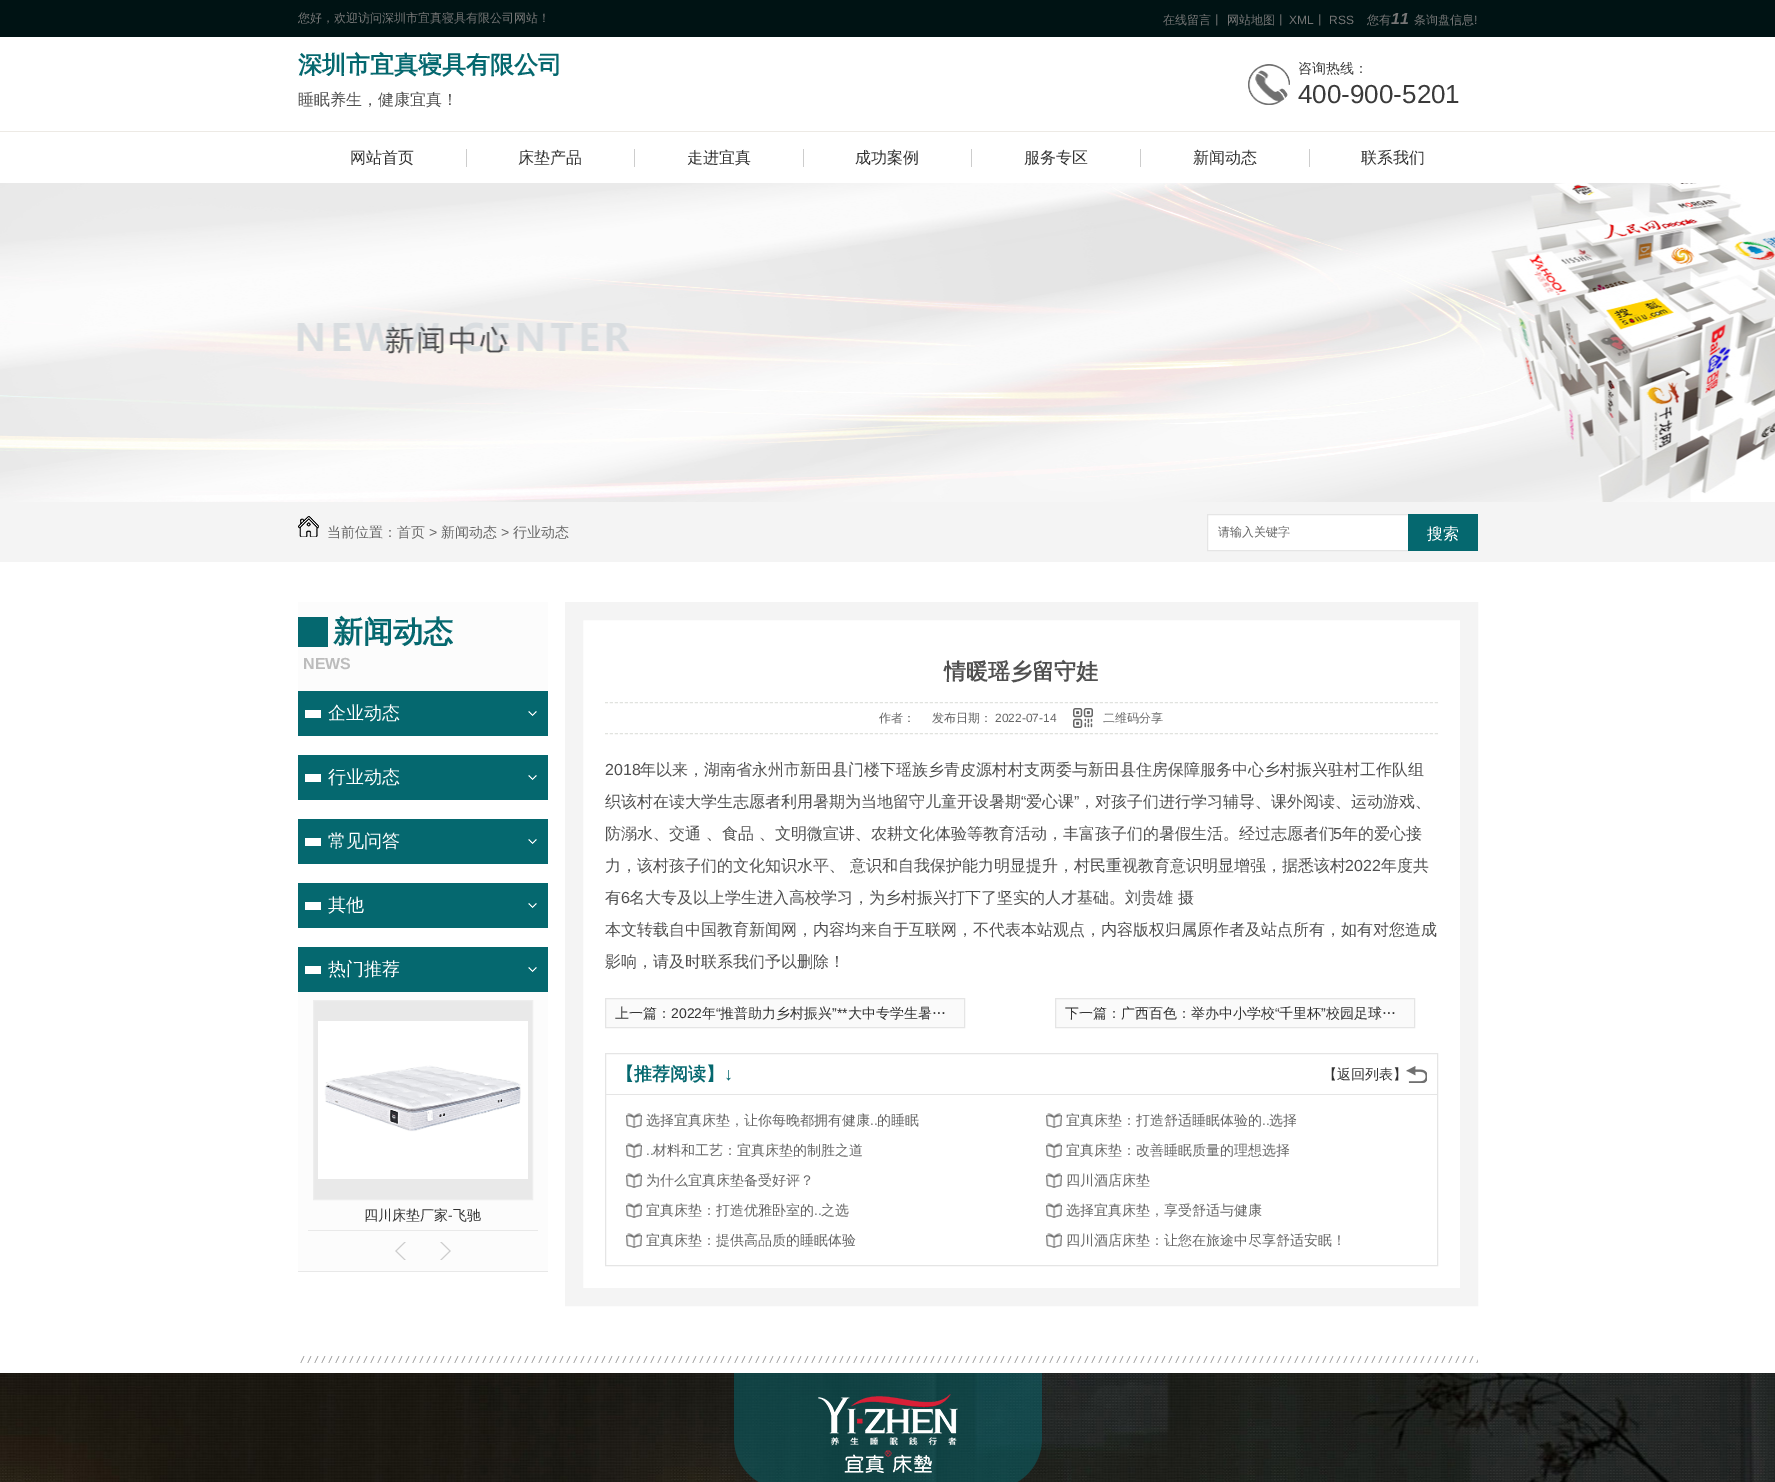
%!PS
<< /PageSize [1775 1482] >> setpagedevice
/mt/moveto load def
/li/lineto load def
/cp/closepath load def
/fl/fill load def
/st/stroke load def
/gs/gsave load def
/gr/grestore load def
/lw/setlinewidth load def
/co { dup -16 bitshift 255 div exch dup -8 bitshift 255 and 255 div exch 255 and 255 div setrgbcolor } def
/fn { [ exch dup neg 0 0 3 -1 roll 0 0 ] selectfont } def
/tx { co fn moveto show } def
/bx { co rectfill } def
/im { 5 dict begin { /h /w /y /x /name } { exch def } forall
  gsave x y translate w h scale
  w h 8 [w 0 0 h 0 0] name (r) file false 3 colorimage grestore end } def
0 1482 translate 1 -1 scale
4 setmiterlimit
0 0 1775 1482 16#FFFFFF bx
0 0 1775 37 16#001314 bx
(media/1.raw) 1248 64 42 41 im
0 131 1775 1 16#EDEAE5 bx
466 149 1 18 16#CDCDCD bx
634 149 1 18 16#CDCDCD bx
803 149 1 18 16#CDCDCD bx
971 149 1 18 16#CDCDCD bx
1140 149 1 18 16#CDCDCD bx
1309 149 1 18 16#CDCDCD bx
(media/2.raw) 0 183 1775 319 im
0 502 1775 60 16#F4F4F4 bx
(media/3.raw) 298 516 21 21 im
16#FFFFFF co
1207.5 514.5 mt 1408.5 514.5 li 1408.5 550.5 li 1207.5 550.5 li cp gs fl gr
16#E5E5E5 co
st
1408 514 70 37 16#05686F bx
298 602 250 89 16#FCFCFC bx
298 617 30 30 16#05686F bx
298 691 250 45 16#05686F bx
(media/4.raw) 528 711 9 5 im
305 710 16 8 16#FFFFFF bx
298 755 250 45 16#05686F bx
(media/4.raw) 528 775 9 5 im
305 774 16 8 16#FFFFFF bx
298 819 250 45 16#05686F bx
(media/4.raw) 528 839 9 5 im
305 838 16 8 16#FFFFFF bx
298 883 250 45 16#05686F bx
(media/4.raw) 528 903 9 5 im
305 902 16 8 16#FFFFFF bx
298 992 250 279 16#FCFCFC bx
298 1271 250 1 16#E8E8E8 bx
298 947 250 45 16#05686F bx
(media/4.raw) 528 967 9 5 im
305 966 16 8 16#FFFFFF bx
308 1230 230 1 16#E9E9E9 bx
313.5 1000.5 mt 532.5 1000.5 li 532.5 1199.5 li 313.5 1199.5 li cp gs fl gr
16#EEEEEE co
st
(media/5.raw) 318 1021 210 158 im
(media/6.raw) 395 1242 11 18 im
(media/7.raw) 440 1242 11 18 im
16#F4F4F4 co
18 lw
574 611 895 686 rectstroke
16#E1E3DF co
1 lw
[3 2] 0 setdash
605 702.5 mt 1438 702.5 li st
605 733.5 mt 1438 733.5 li st
(media/8.raw) 1073 708 20 20 im
16#FAFAFA co
605.5 998.5 mt 964.5 998.5 li 964.5 1027.5 li 605.5 1027.5 li cp gs fl gr
16#E5E5E5 co
[] 0 setdash
st
16#FAFAFA co
1055.5 998.5 mt 1414.5 998.5 li 1414.5 1027.5 li 1055.5 1027.5 li cp gs fl gr
16#E5E5E5 co
st
605.5 1053.5 832 212 rectstroke
606 1094 831 1 16#E5E5E5 bx
(media/9.raw) 1406 1066 21 17 im
(media/10.raw) 626 1113 16 15 im
(media/10.raw) 1046 1113 16 15 im
(media/10.raw) 626 1143 16 15 im
(media/10.raw) 1046 1143 16 15 im
(media/10.raw) 626 1173 16 15 im
(media/10.raw) 1046 1173 16 15 im
(media/10.raw) 626 1203 16 15 im
(media/10.raw) 1046 1203 16 15 im
(media/10.raw) 626 1233 16 15 im
(media/10.raw) 1046 1233 16 15 im
(media/11.raw) 300 1356 1178 7 im
(media/12.raw) 0 1373 1775 109 im
(media/13.raw) 734 1373 308 109 im
(您好，欢迎访问深圳市宜真寝具有限公司网站！) 298 22 /WenQuanYiZenHei-Medium 12 16#767676 tx
(在线留言丨 网站地图丨) 1163 24 /WenQuanYiZenHei-Medium 12 16#767676 tx
(XML) 1289 24 /LiberationSans-Regular 12 16#767676 tx
(丨) 1314 24 /WenQuanYiZenHei-Medium 12 16#767676 tx
(RSS) 1329 24 /LiberationSans-Regular 12 16#767676 tx
(您有) 1367 24 /WenQuanYiZenHei-Medium 12 16#767676 tx
(11) 1391 24 /LiberationSans-BoldItalic 16 16#767676 tx
(条询盘信息) 1414 24 /WenQuanYiZenHei-Medium 12 16#767676 tx
(!) 1474 24 /LiberationSans-Regular 12 16#767676 tx
(深圳市宜真寝具有限公司) 298 73 /WenQuanYiZenHei-Bold 24 16#05686F tx
(睡眠养生，健康宜真！) 298 105 /WenQuanYiZenHei-Medium 16 16#505050 tx
gs
1298 62 180 13 rectclip
(咨询热线：) 1298 73 /WenQuanYiZenHei-Medium 14 16#3A3A3A tx
gr
(400-900-5201) 1298 103 /LiberationSans-Regular 26 16#3A3A3A tx
(网站首页) 350 163 /WenQuanYiZenHei-Medium 16 16#333333 tx
(床垫产品) 518 163 /WenQuanYiZenHei-Medium 16 16#333333 tx
(走进宜真) 687 163 /WenQuanYiZenHei-Medium 16 16#333333 tx
(成功案例) 855 163 /WenQuanYiZenHei-Medium 16 16#333333 tx
(服务专区) 1024 163 /WenQuanYiZenHei-Medium 16 16#333333 tx
(新闻动态) 1193 163 /WenQuanYiZenHei-Medium 16 16#333333 tx
(联系我们) 1361 163 /WenQuanYiZenHei-Medium 16 16#333333 tx
(当前位置：首页) 327 537 /WenQuanYiZenHei-Medium 14 16#666666 tx
(>) 429 537 /LiberationSans-Regular 14 16#666666 tx
(新闻动态) 441 537 /WenQuanYiZenHei-Medium 14 16#666666 tx
(>) 501 537 /LiberationSans-Regular 14 16#666666 tx
(行业动态) 513 537 /WenQuanYiZenHei-Medium 14 16#666666 tx
(请输入关键字) 1218 536 /WenQuanYiZenHei-Medium 12 16#666666 tx
(搜索) 1427 539 /WenQuanYiZenHei-Medium 16 16#FFFFFF tx
(新闻动态) 333 642 /WenQuanYiZenHei-Bold 30 16#05686F tx
(NEWS) 303 669 /LiberationSans-Bold 16 16#BCBCBC tx
(企业动态) 328 719 /WenQuanYiZenHei-Medium 18 16#FFFFFF tx
(行业动态) 328 783 /WenQuanYiZenHei-Medium 18 16#FFFFFF tx
(常见问答) 328 847 /WenQuanYiZenHei-Medium 18 16#FFFFFF tx
(其他) 328 911 /WenQuanYiZenHei-Medium 18 16#FFFFFF tx
(热门推荐) 328 975 /WenQuanYiZenHei-Medium 18 16#FFFFFF tx
(四川床垫厂家) 364 1220 /WenQuanYiZenHei-Medium 14 16#333333 tx
(-) 448 1220 /LiberationSans-Regular 14 16#333333 tx
(飞驰) 453 1220 /WenQuanYiZenHei-Medium 14 16#333333 tx
(情暖瑶乡留守娃) 944 679 /WenQuanYiZenHei-Bold 22 16#505050 tx
(作者：) 879 722 /WenQuanYiZenHei-Medium 12 16#666666 tx
(发布日期：) 932 722 /WenQuanYiZenHei-Medium 12 16#666666 tx
(2022-07-14) 995 722 /LiberationSans-Regular 12 16#666666 tx
(二维码分享) 1103 722 /WenQuanYiZenHei-Medium 12 16#666666 tx
(2018) 605 775 /LiberationSans-Regular 16 16#505050 tx
(年以来，湖南省永州市新田县门楼下瑶族乡青皮源村村支两委与新田县住房保障服务中心乡村振兴驻村工作队组) 640 775 /WenQuanYiZenHei-Medium 16 16#505050 tx
(织该村在读大学生志愿者利用暑期为当地留守儿童开设暑期) 605 807 /WenQuanYiZenHei-Medium 16 16#505050 tx
(“) 1021 807 /LiberationSans-Regular 16 16#505050 tx
(爱心课) 1026 807 /WenQuanYiZenHei-Medium 16 16#505050 tx
(”) 1074 807 /LiberationSans-Regular 16 16#505050 tx
(，对孩子们进行学习辅导、课外阅读、运动游戏、) 1079 807 /WenQuanYiZenHei-Medium 16 16#505050 tx
(防溺水、交通 、食品 、文明微宣讲、农耕文化体验等教育活动，丰富孩子们的暑假生活。经过志愿者们) 605 839 /WenQuanYiZenHei-Medium 16 16#505050 tx
(5) 1333 839 /LiberationSans-Regular 16 16#505050 tx
(年的爱心接) 1342 839 /WenQuanYiZenHei-Medium 16 16#505050 tx
(力，该村孩子们的文化知识水平、 意识和自我保护能力明显提升，村民重视教育意识明显增强，据悉该村) 605 871 /WenQuanYiZenHei-Medium 16 16#505050 tx
(2022) 1345 871 /LiberationSans-Regular 16 16#505050 tx
(年度共) 1381 871 /WenQuanYiZenHei-Medium 16 16#505050 tx
(有) 605 903 /WenQuanYiZenHei-Medium 16 16#505050 tx
(6) 621 903 /LiberationSans-Regular 16 16#505050 tx
(名大专及以上学生进入高校学习，为乡村振兴打下了坚实的人才基础。刘贵雄 摄) 629 903 /WenQuanYiZenHei-Medium 16 16#505050 tx
(本文转载自中国教育新闻网，内容均来自于互联网，不代表本站观点，内容版权归属原作者及站点所有，如有对您造成) 605 935 /WenQuanYiZenHei-Medium 16 16#505050 tx
(影响，请及时联系我们予以删除！) 605 967 /WenQuanYiZenHei-Medium 16 16#505050 tx
(上一篇：) 615 1018 /WenQuanYiZenHei-Medium 14 16#333333 tx
(2022) 671 1018 /LiberationSans-Regular 14 16#333333 tx
(年) 702 1018 /WenQuanYiZenHei-Medium 14 16#333333 tx
(“) 716 1018 /LiberationSans-Regular 14 16#333333 tx
(推普助力乡村振兴) 720 1018 /WenQuanYiZenHei-Medium 14 16#333333 tx
(”**) 832 1018 /LiberationSans-Regular 14 16#333333 tx
(大中专学生暑…) 848 1018 /WenQuanYiZenHei-Medium 14 16#333333 tx
(下一篇：广西百色：举办中小学校) 1065 1018 /WenQuanYiZenHei-Medium 14 16#333333 tx
(“) 1275 1018 /LiberationSans-Regular 14 16#333333 tx
(千里杯) 1279 1018 /WenQuanYiZenHei-Medium 14 16#333333 tx
(”) 1321 1018 /LiberationSans-Regular 14 16#333333 tx
(校园足球…) 1326 1018 /WenQuanYiZenHei-Medium 14 16#333333 tx
(【推荐阅读】) 616 1080 /WenQuanYiZenHei-Bold 18 16#05686F tx
(↓) 724 1080 /LiberationSans-Bold 18 16#05686F tx
(【返回列表】) 1323 1079 /WenQuanYiZenHei-Medium 14 16#333333 tx
(选择宜真床垫，让你每晚都拥有健康) 646 1125 /WenQuanYiZenHei-Medium 14 16#666666 tx
(..) 870 1125 /LiberationSans-Regular 14 16#666666 tx
(的睡眠) 877 1125 /WenQuanYiZenHei-Medium 14 16#666666 tx
(宜真床垫：打造舒适睡眠体验的) 1066 1125 /WenQuanYiZenHei-Medium 14 16#666666 tx
(..) 1262 1125 /LiberationSans-Regular 14 16#666666 tx
(选择) 1269 1125 /WenQuanYiZenHei-Medium 14 16#666666 tx
(..) 646 1155 /LiberationSans-Regular 14 16#666666 tx
(材料和工艺：宜真床垫的制胜之道) 653 1155 /WenQuanYiZenHei-Medium 14 16#666666 tx
(宜真床垫：改善睡眠质量的理想选择) 1066 1155 /WenQuanYiZenHei-Medium 14 16#666666 tx
(为什么宜真床垫备受好评？) 646 1185 /WenQuanYiZenHei-Medium 14 16#666666 tx
(四川酒店床垫) 1066 1185 /WenQuanYiZenHei-Medium 14 16#666666 tx
(宜真床垫：打造优雅卧室的) 646 1215 /WenQuanYiZenHei-Medium 14 16#666666 tx
(..) 814 1215 /LiberationSans-Regular 14 16#666666 tx
(之选) 821 1215 /WenQuanYiZenHei-Medium 14 16#666666 tx
(选择宜真床垫，享受舒适与健康) 1066 1215 /WenQuanYiZenHei-Medium 14 16#666666 tx
(宜真床垫：提供高品质的睡眠体验) 646 1245 /WenQuanYiZenHei-Medium 14 16#666666 tx
(四川酒店床垫：让您在旅途中尽享舒适安眠！) 1066 1245 /WenQuanYiZenHei-Medium 14 16#666666 tx
showpage
